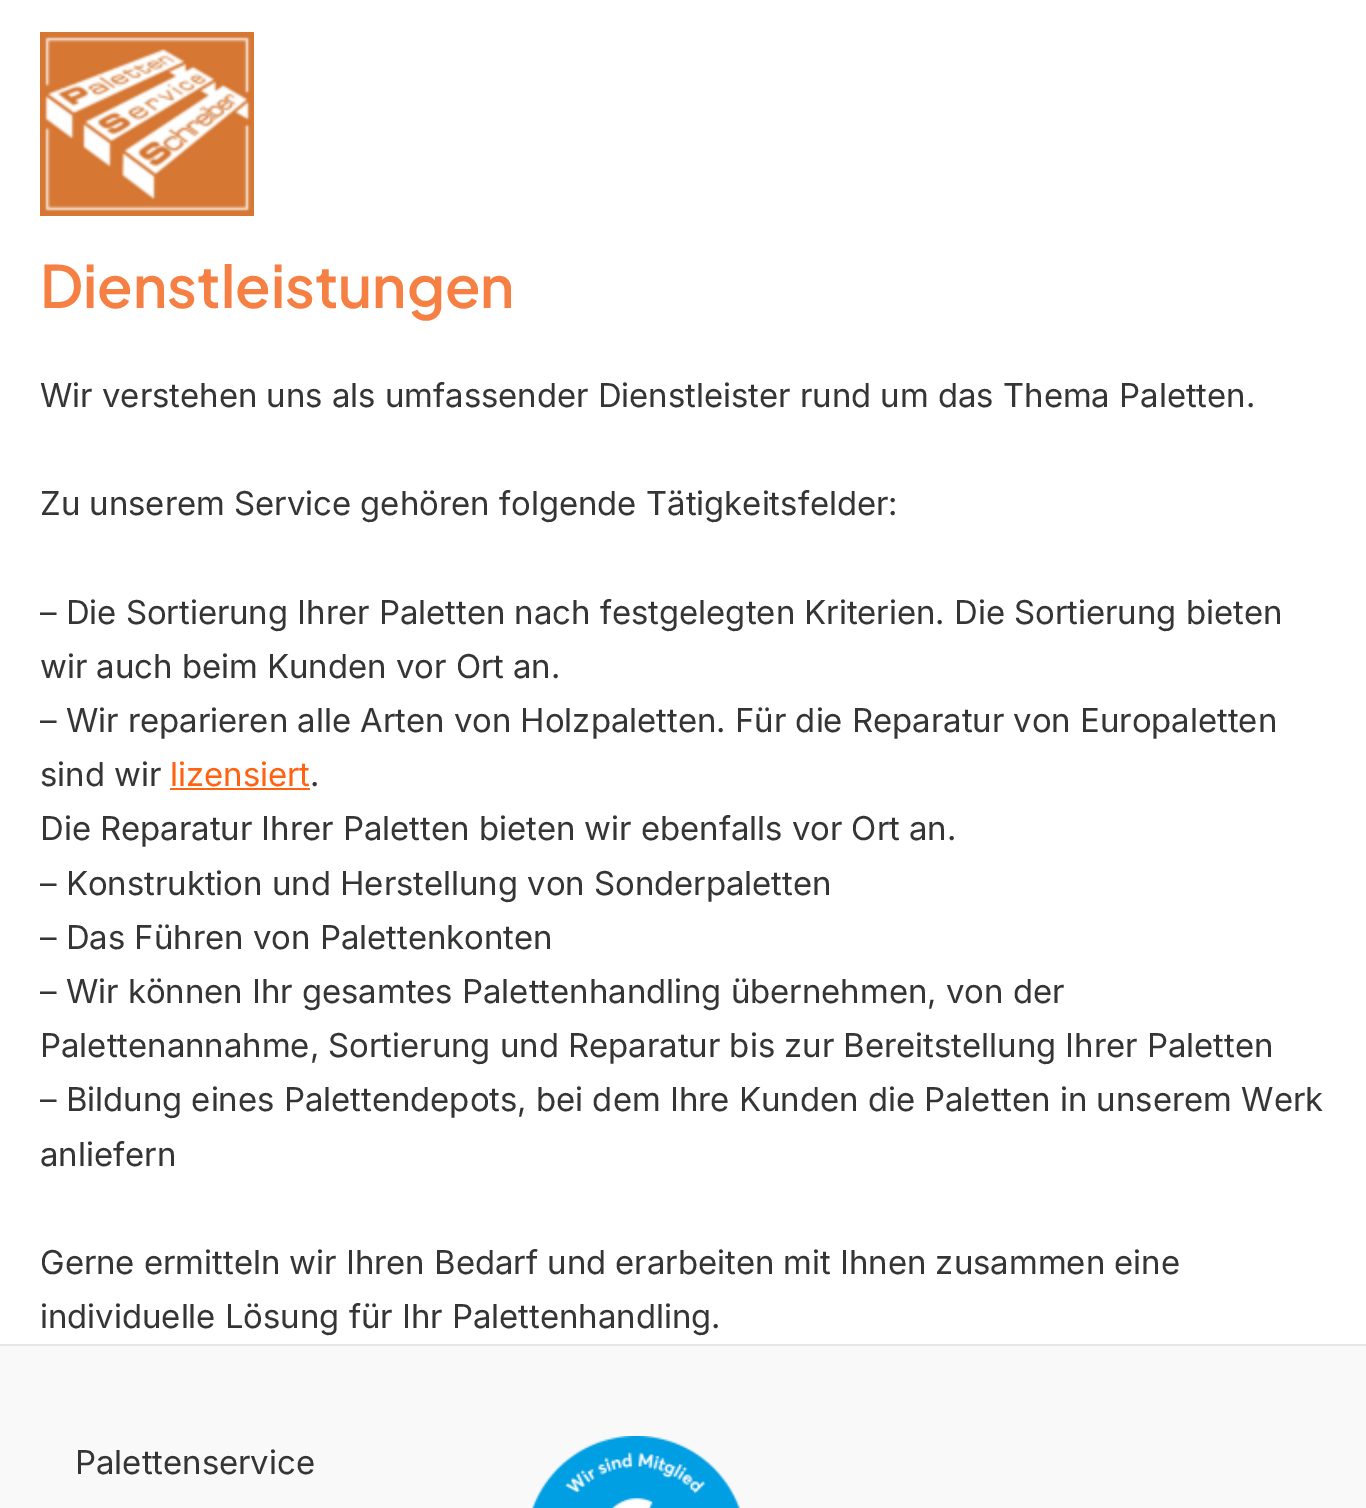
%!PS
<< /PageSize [1366 1508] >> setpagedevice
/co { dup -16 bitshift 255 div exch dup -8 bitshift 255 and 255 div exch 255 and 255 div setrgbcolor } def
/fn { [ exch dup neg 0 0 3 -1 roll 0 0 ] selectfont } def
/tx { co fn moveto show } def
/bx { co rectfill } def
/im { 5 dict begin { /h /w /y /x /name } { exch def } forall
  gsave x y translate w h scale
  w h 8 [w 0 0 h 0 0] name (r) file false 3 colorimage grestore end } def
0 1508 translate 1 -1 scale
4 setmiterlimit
0 0 1366 1508 16#FFFFFF bx
(media/1.raw) 40 32 214 184 im
170 788 140 2 16#FF6210 bx
0 1346 1366 162 16#F9F9F9 bx
0 1344 1366 2 16#E6E6E6 bx
(media/2.raw) 532 1436 208 72 im
(Dienstleistungen) 40 308 /PlusJakartaSans-SemiBold 58.25 16#F67F43 tx
(Wir verstehen uns als umfassender Dienstleister rund um das Thema Paletten.) 40 407 /Inter-Regular 32.85 16#353535 tx
(Zu unserem Service gehören folgende Tätigkeitsfelder:) 40 515 /Inter-Regular 32.85 16#353535 tx
(– Die Sortierung Ihrer Paletten nach festgelegten Kriterien. Die Sortierung bieten) 40 624 /Inter-Regular 32.85 16#353535 tx
(wir auch beim Kunden vor Ort an.) 40 678 /Inter-Regular 32.85 16#353535 tx
(– Wir reparieren alle Arten von Holzpaletten. Für die Reparatur von Europaletten) 40 732 /Inter-Regular 32.85 16#353535 tx
(sind wir) 40 786 /Inter-Regular 32.85 16#353535 tx
(lizensiert) 170 786 /Inter-Regular 32.85 16#FF6210 tx
(.) 310 786 /Inter-Regular 32.85 16#353535 tx
(Die Reparatur Ihrer Paletten bieten wir ebenfalls vor Ort an.) 40 840 /Inter-Regular 32.85 16#353535 tx
(– Konstruktion und Herstellung von Sonderpaletten) 40 895 /Inter-Regular 32.85 16#353535 tx
(– Das Führen von Palettenkonten) 40 949 /Inter-Regular 32.85 16#353535 tx
(– Wir können Ihr gesamtes Palettenhandling übernehmen, von der) 40 1003 /Inter-Regular 32.85 16#353535 tx
(Palettenannahme, Sortierung und Reparatur bis zur Bereitstellung Ihrer Paletten) 40 1057 /Inter-Regular 32.85 16#353535 tx
(– Bildung eines Palettendepots, bei dem Ihre Kunden die Paletten in unserem Werk) 40 1111 /Inter-Regular 32.85 16#353535 tx
(anliefern) 40 1166 /Inter-Regular 32.85 16#353535 tx
(Gerne ermitteln wir Ihren Bedarf und erarbeiten mit Ihnen zusammen eine) 40 1274 /Inter-Regular 32.85 16#353535 tx
(individuelle Lösung für Ihr Palettenhandling.) 40 1328 /Inter-Regular 32.85 16#353535 tx
(Palettenservice) 75 1474 /Inter-Regular 32.85 16#353535 tx
showpage
